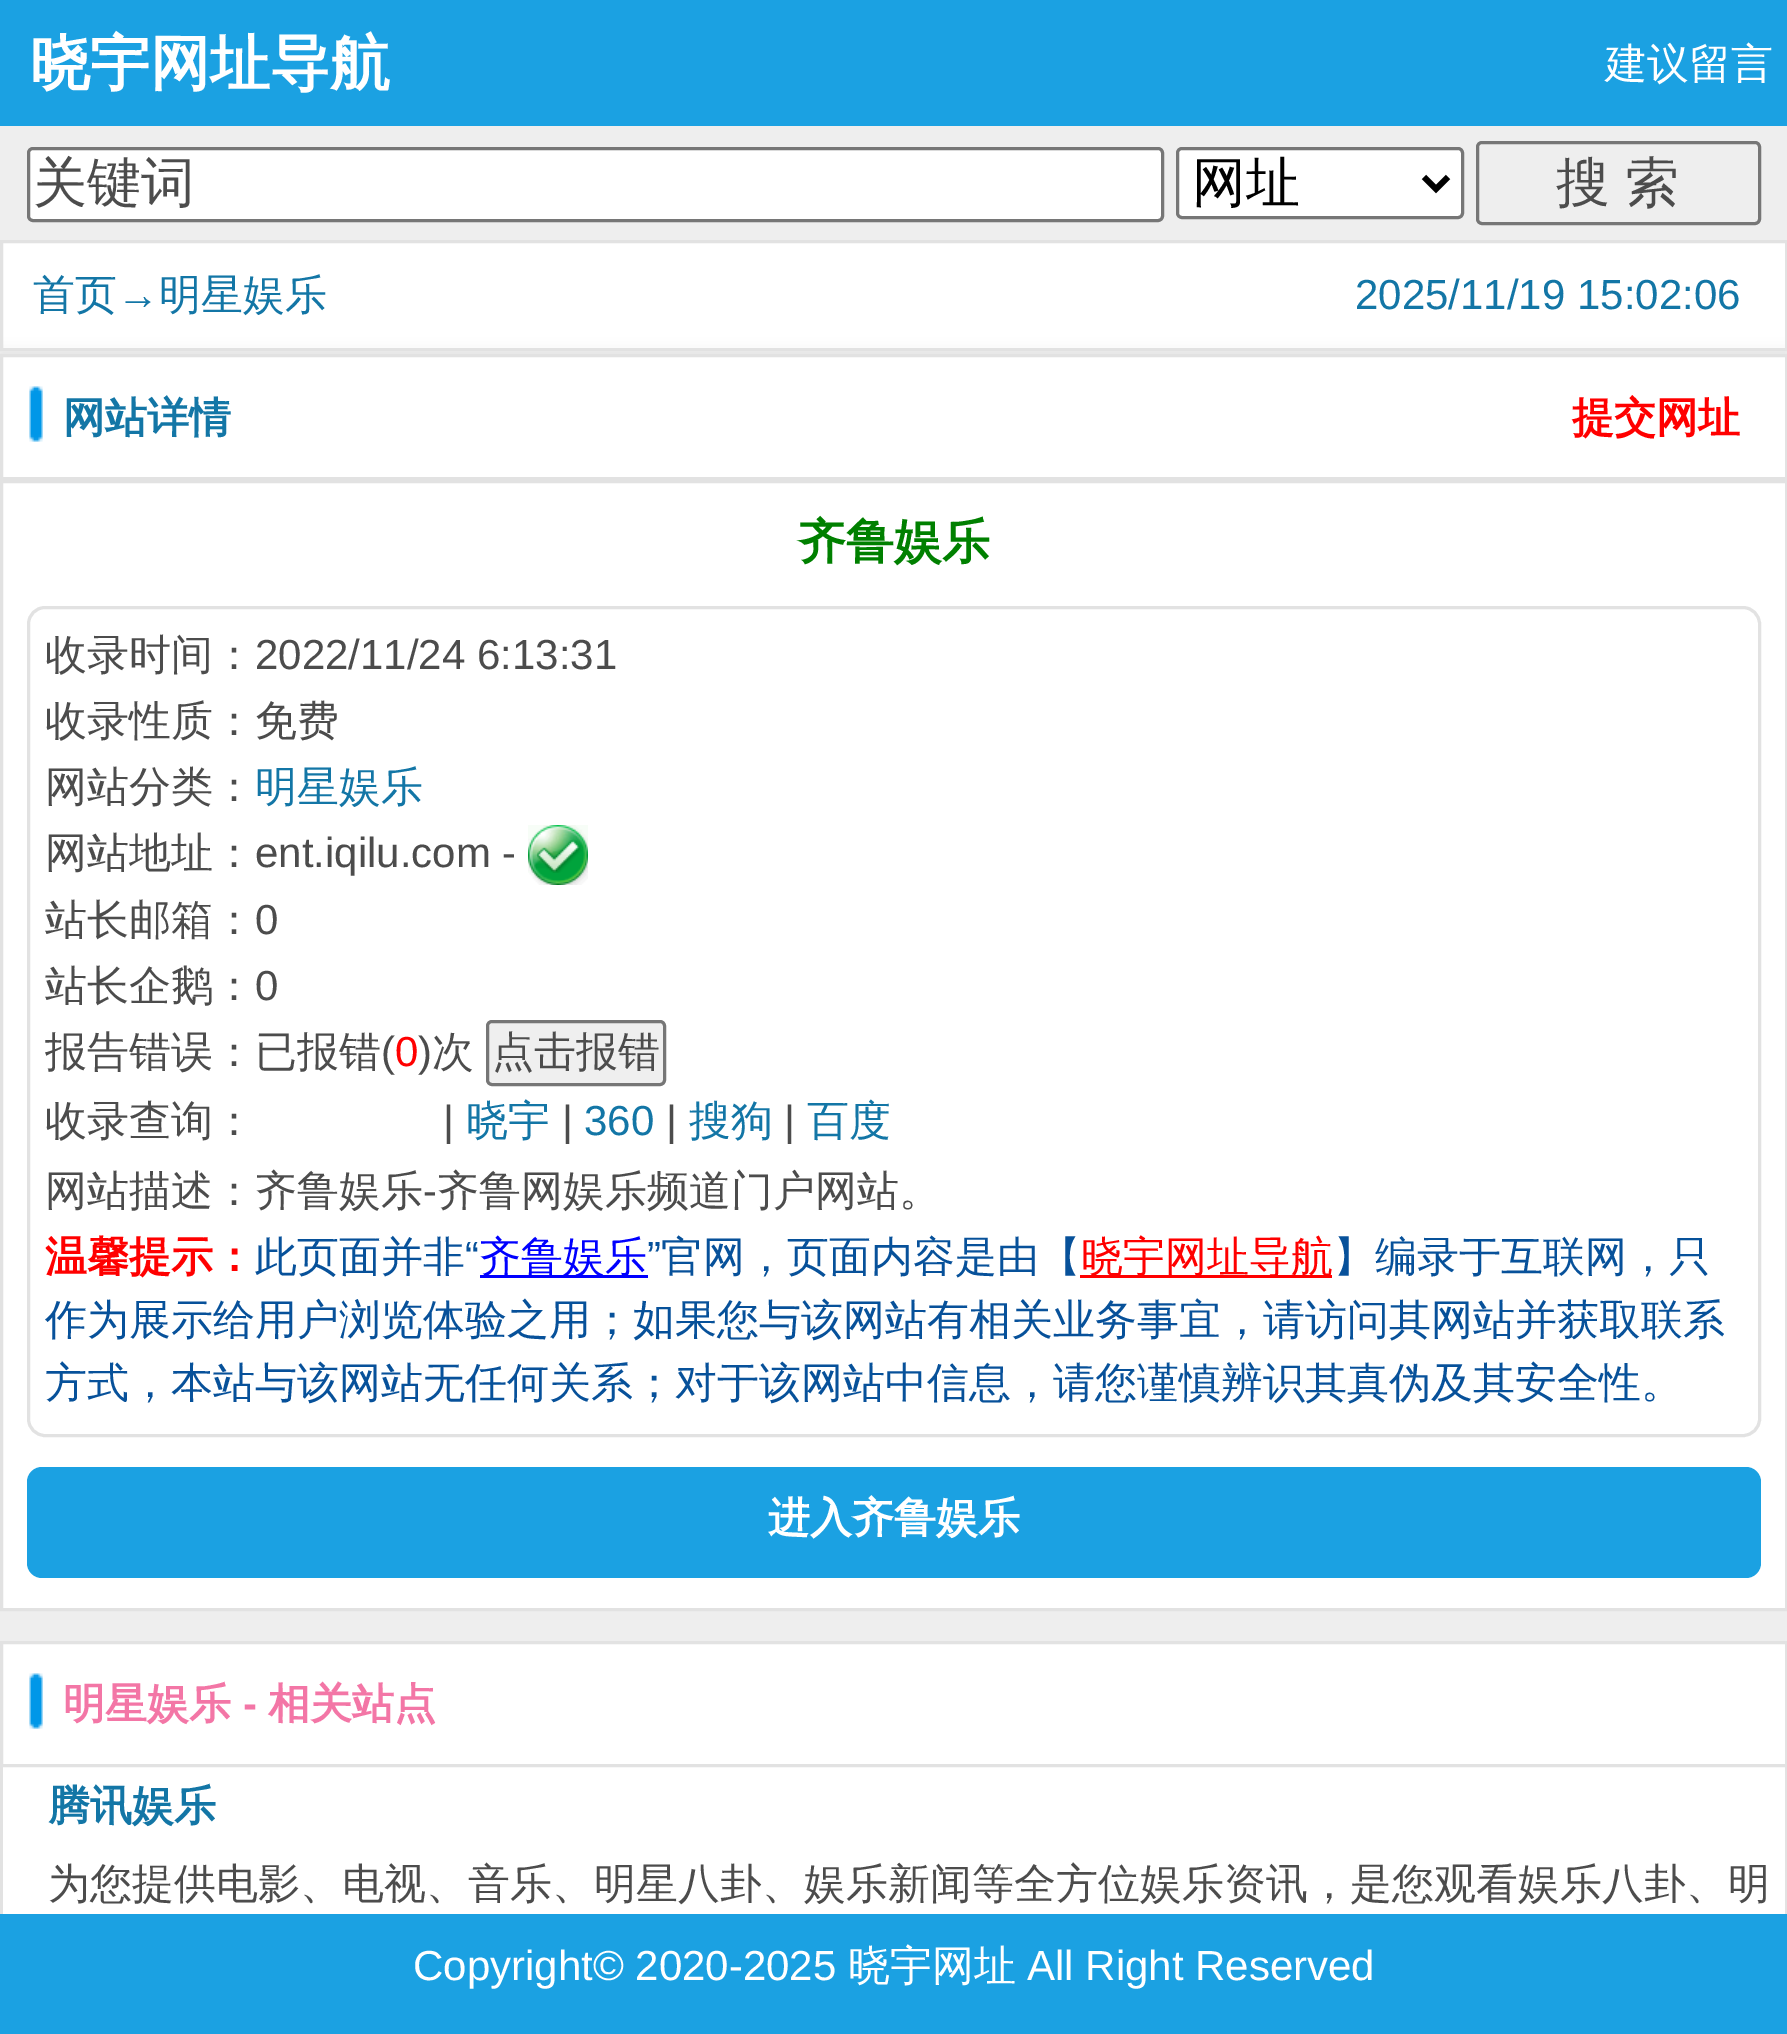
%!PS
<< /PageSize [1787 2034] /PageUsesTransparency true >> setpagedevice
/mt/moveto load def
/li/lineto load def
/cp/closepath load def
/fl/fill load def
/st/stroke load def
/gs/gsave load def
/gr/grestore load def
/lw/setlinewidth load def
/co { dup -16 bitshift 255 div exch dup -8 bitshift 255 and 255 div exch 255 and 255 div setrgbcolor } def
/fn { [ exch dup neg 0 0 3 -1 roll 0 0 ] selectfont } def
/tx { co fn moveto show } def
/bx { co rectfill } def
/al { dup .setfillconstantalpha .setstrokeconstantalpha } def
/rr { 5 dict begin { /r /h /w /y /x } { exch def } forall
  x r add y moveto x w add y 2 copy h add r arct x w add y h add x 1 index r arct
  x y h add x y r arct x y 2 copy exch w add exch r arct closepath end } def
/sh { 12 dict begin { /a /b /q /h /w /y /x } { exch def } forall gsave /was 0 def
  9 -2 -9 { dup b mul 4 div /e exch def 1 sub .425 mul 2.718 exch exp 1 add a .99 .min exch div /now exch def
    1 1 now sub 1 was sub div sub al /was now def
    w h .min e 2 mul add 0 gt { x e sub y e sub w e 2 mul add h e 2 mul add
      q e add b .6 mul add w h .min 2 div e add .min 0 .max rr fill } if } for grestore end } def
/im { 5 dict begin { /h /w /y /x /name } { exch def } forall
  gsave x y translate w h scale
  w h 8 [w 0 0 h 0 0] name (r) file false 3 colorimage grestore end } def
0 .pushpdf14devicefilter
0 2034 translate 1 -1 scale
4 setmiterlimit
0 0 1787 2034 16#EEEEEE bx
0 0 1787 126 16#1BA1E2 bx
16#FFFFFF co
28.5 148.5 1134 72 4.5 rr gs fl gr
16#767676 co
3 lw
st
16#FFFFFF co
1177.5 148.5 285 69 4.5 rr gs fl gr
16#767676 co
st
16#000000 co
6 lw
1424 177 mt 1436 189 li 1448 177 li st
16#767676 co
3 lw
1477.5 142.5 282 81 4.5 rr st
16#FFFFFF co
1.5 241.5 mt 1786.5 241.5 li 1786.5 349.5 li 1.5 349.5 li cp gs fl gr
16#E2E2E2 co
st
0 354 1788 126 0 7.5 1 sh
3 357 1782 120 16#FFFFFF bx
(media/1.raw) 29 386 14 56 im
16#E2E2E2 co
1.5 355.5 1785 123 rectstroke
16#FFFFFF co
1.5 481.5 mt 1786.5 481.5 li 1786.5 1609.5 li 1.5 1609.5 li cp gs fl gr
16#E2E2E2 co
st
28.5 607.5 1731 828 16.5 rr st
(media/2.raw) 528 825 60 60 im
16#EFEFEF co
487.5 1021.5 177 63 4.5 rr gs fl gr
16#767676 co
st
480 1275 168 3 16#0000FF bx
1080 1275 252 3 16#FF0000 bx
16#1BA1E2 co
27 1467 1734 111 15 rr fl
3 1644 1782 270 16#FFFFFF bx
(media/1.raw) 29 1673 14 56 im
16#E2E2E2 co
1.5 1642.5 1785 123 rectstroke
1785 1764 2 150 16#E2E2E2 bx
0 1764 3 150 16#E2E2E2 bx
0 1914 1787 120 16#1BA1E2 bx
(晓宇网址导航) 30 84 /WenQuanYiZenHei-Bold 60 16#FFFFFF tx
(建议留言) 1605 78 /WenQuanYiZenHei-Medium 42 16#FFFFFF tx
(关键词) 33 201 /WenQuanYiZenHei-Medium 54 16#4C4C4C tx
(网址) 1192 201 /WenQuanYiZenHei-Medium 54 16#000000 tx
16#4C4C4C co
1556 201 mt -1 0 32 (搜 索) widthshow
(首页) 33 309 /WenQuanYiZenHei-Medium 42 16#1376A6 tx
(→) 117 309 /LiberationSans-Regular 42 16#1376A6 tx
(明星娱乐) 159 309 /WenQuanYiZenHei-Medium 42 16#1376A6 tx
(2025/11/19 15:02:06) 1355 309 /LiberationSans-Regular 42 16#1376A6 tx
(网站详情) 63 432 /WenQuanYiZenHei-Bold 42 16#1376A6 tx
(提交网址) 1572 432 /WenQuanYiZenHei-Bold 42 16#FF0000 tx
(齐鲁娱乐) 798 558 /WenQuanYiZenHei-Bold 48 16#008000 tx
(收录时间：) 45 669 /WenQuanYiZenHei-Medium 42 16#4C4C4C tx
(2022/11/24 6:13:31) 255 669 /LiberationSans-Regular 42 16#4C4C4C tx
(收录性质：免费) 45 735 /WenQuanYiZenHei-Medium 42 16#4C4C4C tx
(网站分类：) 45 801 /WenQuanYiZenHei-Medium 42 16#4C4C4C tx
(明星娱乐) 255 801 /WenQuanYiZenHei-Medium 42 16#1376A6 tx
(网站地址：) 45 867 /WenQuanYiZenHei-Medium 42 16#4C4C4C tx
(ent.iqilu.com -) 255 867 /LiberationSans-Regular 42 16#4C4C4C tx
(站长邮箱：) 45 934 /WenQuanYiZenHei-Medium 42 16#4C4C4C tx
(0) 255 934 /LiberationSans-Regular 42 16#4C4C4C tx
(站长企鹅：) 45 1000 /WenQuanYiZenHei-Medium 42 16#4C4C4C tx
(0) 255 1000 /LiberationSans-Regular 42 16#4C4C4C tx
(报告错误：已报错) 45 1066 /WenQuanYiZenHei-Medium 42 16#4C4C4C tx
(\() 381 1066 /LiberationSans-Regular 42 16#4C4C4C tx
(0) 395 1066 /LiberationSans-Regular 42 16#FF0000 tx
(\)) 418 1066 /LiberationSans-Regular 42 16#4C4C4C tx
(次) 432 1066 /WenQuanYiZenHei-Medium 42 16#4C4C4C tx
(点击报错) 492 1066 /WenQuanYiZenHei-Medium 42 16#4C4C4C tx
(收录查询：) 45 1135 /WenQuanYiZenHei-Medium 42 16#4C4C4C tx
(|) 443 1135 /LiberationSans-Regular 42 16#4C4C4C tx
(晓宇) 466 1135 /WenQuanYiZenHei-Medium 42 16#1376A6 tx
(|) 562 1135 /LiberationSans-Regular 42 16#4C4C4C tx
(360) 584 1135 /LiberationSans-Regular 42 16#1376A6 tx
(|) 666 1135 /LiberationSans-Regular 42 16#4C4C4C tx
(搜狗) 689 1135 /WenQuanYiZenHei-Medium 42 16#1376A6 tx
(|) 784 1135 /LiberationSans-Regular 42 16#4C4C4C tx
(百度) 807 1135 /WenQuanYiZenHei-Medium 42 16#1376A6 tx
(网站描述：齐鲁娱乐) 45 1205 /WenQuanYiZenHei-Medium 42 16#4C4C4C tx
(-) 423 1205 /LiberationSans-Regular 42 16#4C4C4C tx
(齐鲁网娱乐频道门户网站。) 437 1205 /WenQuanYiZenHei-Medium 42 16#4C4C4C tx
(温馨提示：) 45 1271 /WenQuanYiZenHei-Bold 42 16#FF0000 tx
(此页面并非) 255 1271 /WenQuanYiZenHei-Medium 42 16#07519A tx
(“) 465 1271 /LiberationSans-Regular 42 16#07519A tx
(齐鲁娱乐) 479 1271 /WenQuanYiZenHei-Medium 42 16#0000FF tx
(”) 647 1271 /LiberationSans-Regular 42 16#07519A tx
(官网，页面内容是由【) 661 1271 /WenQuanYiZenHei-Medium 42 16#07519A tx
(晓宇网址导航) 1081 1271 /WenQuanYiZenHei-Medium 42 16#FF0000 tx
(】编录于互联网，只) 1333 1271 /WenQuanYiZenHei-Medium 42 16#07519A tx
(作为展示给用户浏览体验之用；如果您与该网站有相关业务事宜，请访问其网站并获取联系) 45 1334 /WenQuanYiZenHei-Medium 42 16#07519A tx
(方式，本站与该网站无任何关系；对于该网站中信息，请您谨慎辨识其真伪及其安全性。) 45 1397 /WenQuanYiZenHei-Medium 42 16#07519A tx
(进入齐鲁娱乐) 768 1532 /WenQuanYiZenHei-Bold 42 16#FFFFFF tx
(明星娱乐) 63 1718 /WenQuanYiZenHei-Bold 42 16#F376A6 tx
(-) 243 1718 /LiberationSans-Bold 42 16#F376A6 tx
(相关站点) 268 1718 /WenQuanYiZenHei-Bold 42 16#F376A6 tx
(腾讯娱乐) 48 1820 /WenQuanYiZenHei-Bold 42 16#1376A6 tx
(为您提供电影、电视、音乐、明星八卦、娱乐新闻等全方位娱乐资讯，是您观看娱乐八卦、明) 48 1898 /WenQuanYiZenHei-Medium 42 16#4C4C4C tx
(Copyright© 2020-2025) 413 1980 /LiberationSans-Regular 42 16#FFFFFF tx
(晓宇网址) 848 1980 /WenQuanYiZenHei-Medium 42 16#FFFFFF tx
(All Right Reserved) 1027 1980 /LiberationSans-Regular 42 16#FFFFFF tx
.poppdf14devicefilter showpage
